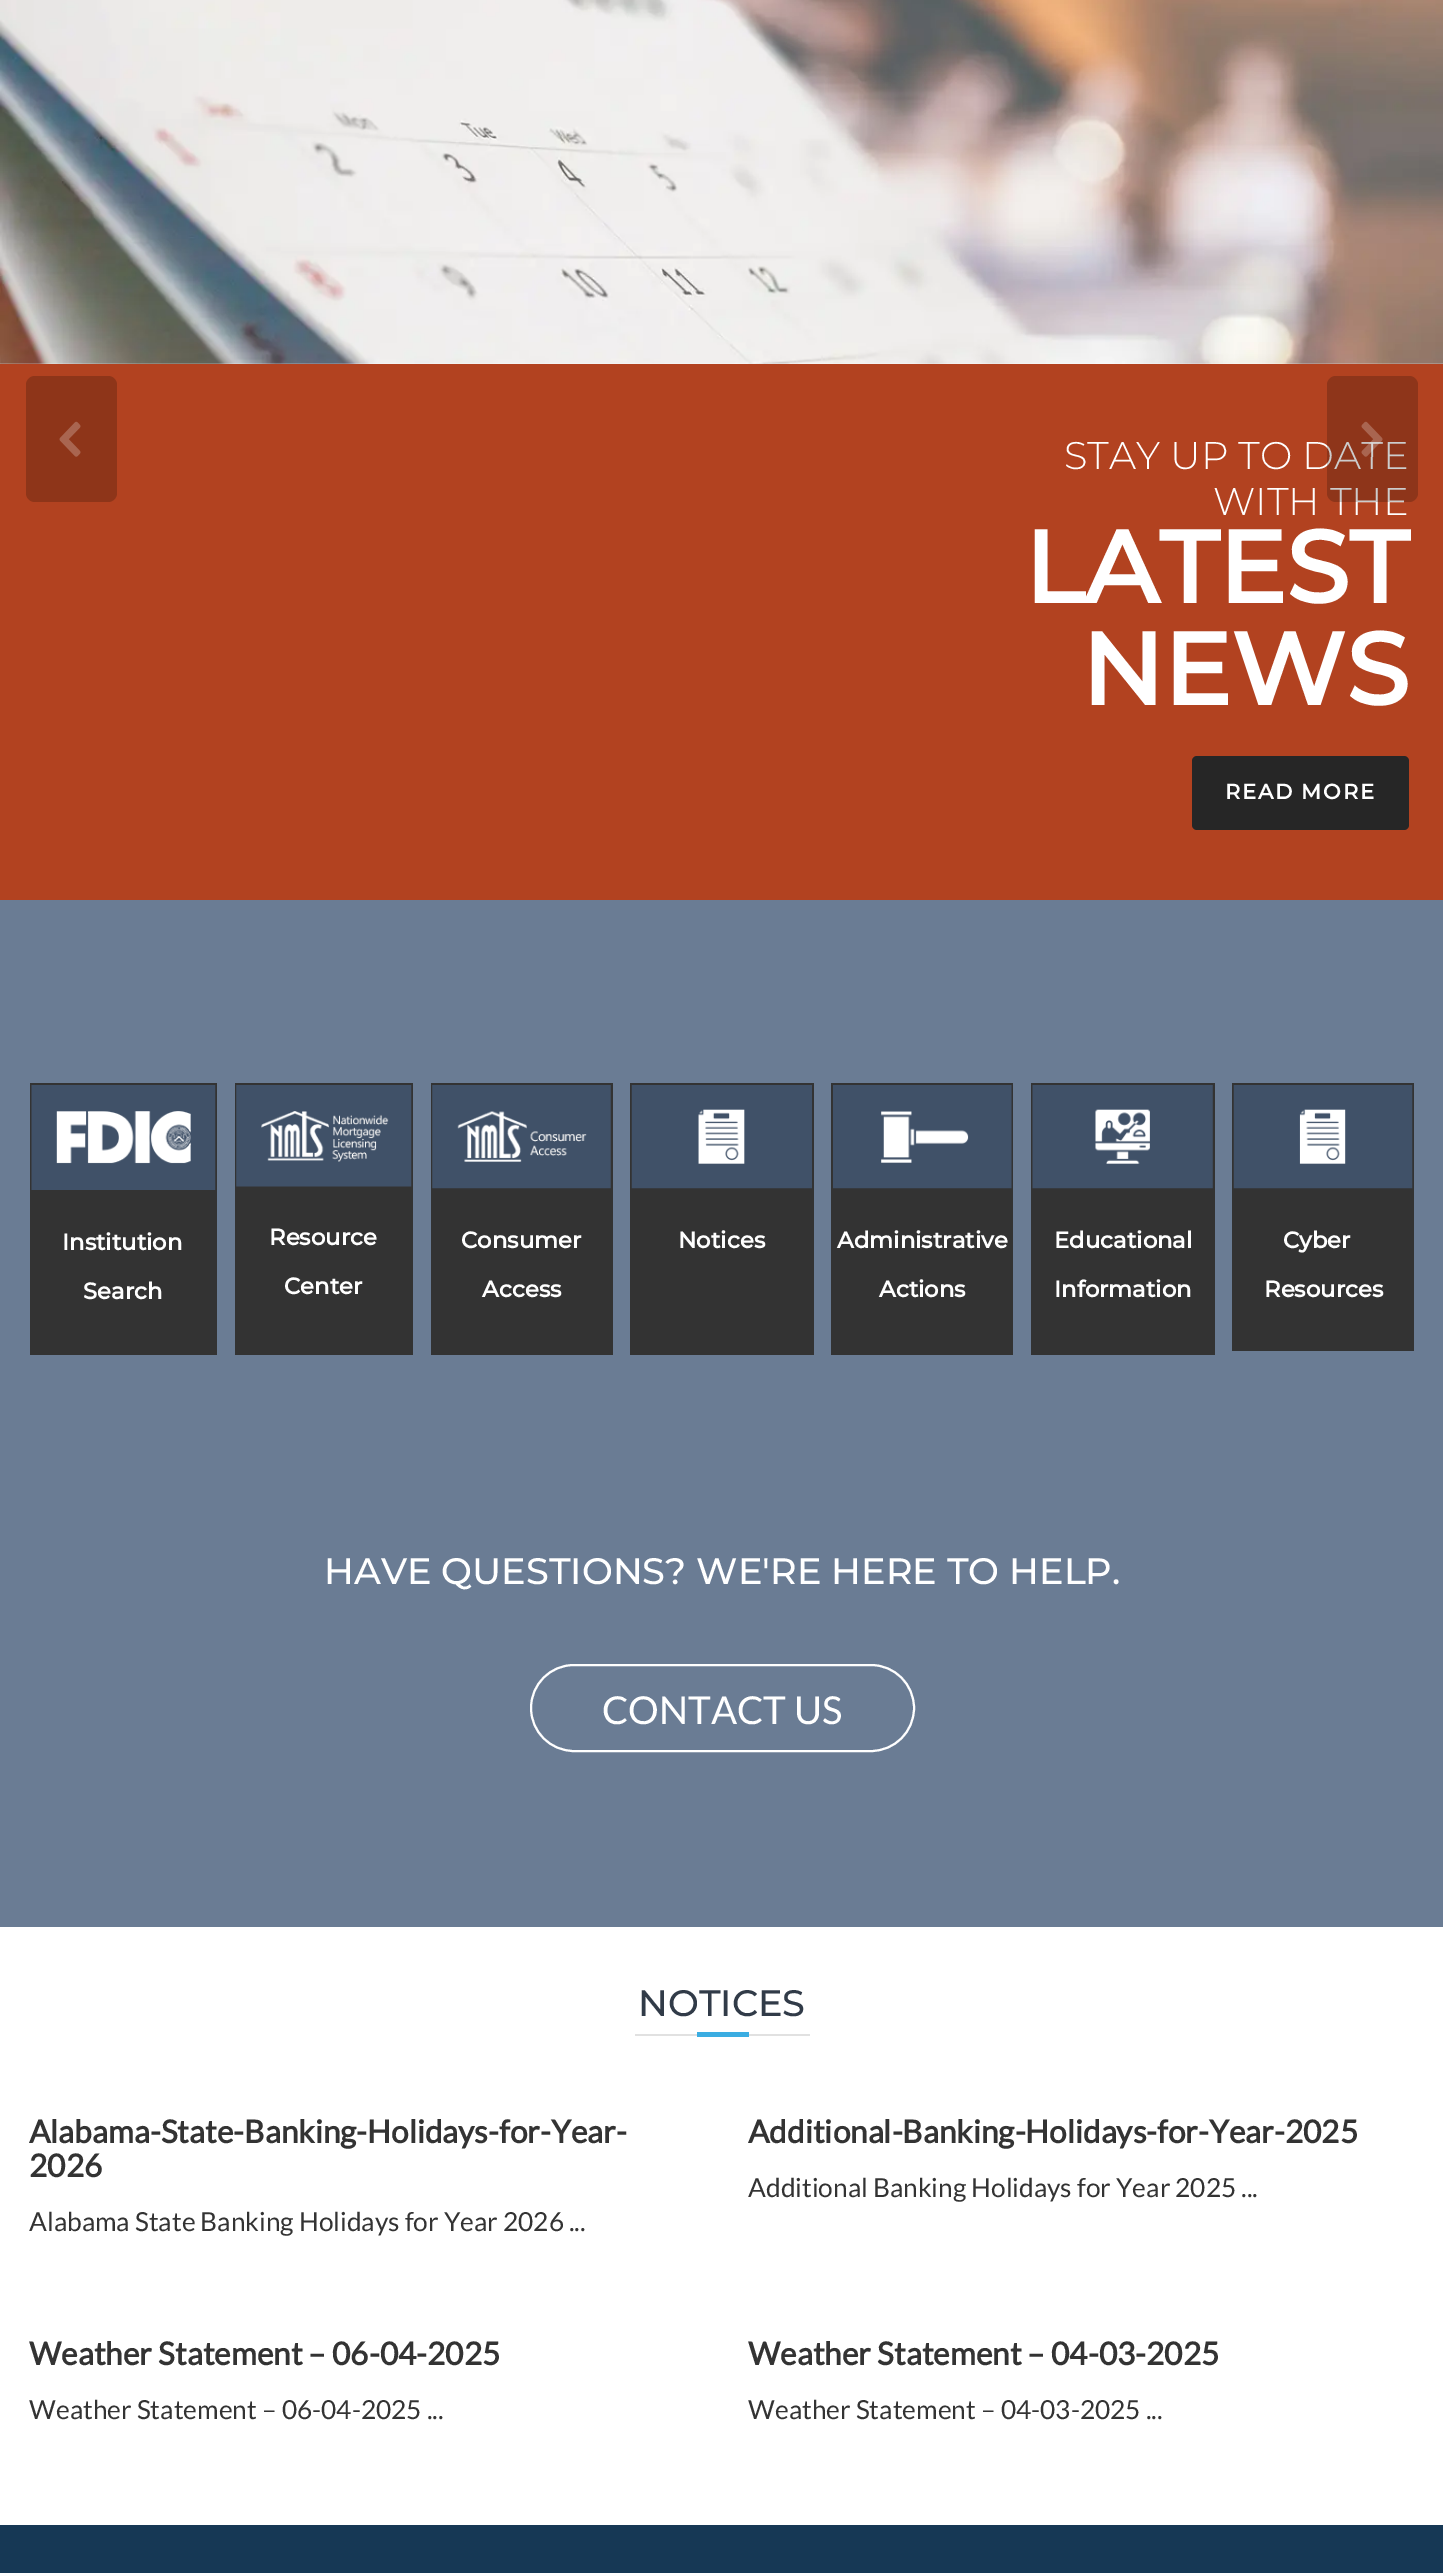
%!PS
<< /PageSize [1443 2573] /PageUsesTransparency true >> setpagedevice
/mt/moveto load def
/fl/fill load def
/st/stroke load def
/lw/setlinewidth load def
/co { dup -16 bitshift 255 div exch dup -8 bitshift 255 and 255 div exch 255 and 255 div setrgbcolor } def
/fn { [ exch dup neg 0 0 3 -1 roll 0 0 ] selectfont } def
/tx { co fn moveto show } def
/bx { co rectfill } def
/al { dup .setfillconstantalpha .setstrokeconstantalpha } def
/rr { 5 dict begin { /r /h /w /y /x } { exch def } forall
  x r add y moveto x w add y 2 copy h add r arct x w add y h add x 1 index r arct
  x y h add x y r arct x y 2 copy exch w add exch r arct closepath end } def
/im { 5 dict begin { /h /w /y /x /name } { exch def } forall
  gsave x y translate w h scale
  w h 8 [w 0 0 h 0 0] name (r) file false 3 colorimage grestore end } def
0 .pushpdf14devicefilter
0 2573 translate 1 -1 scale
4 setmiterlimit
0 0 1443 2573 16#FFFFFF bx
0 364 1443 536 16#B24220 bx
16#8E3519 co
26 376 91 126 9 rr fl
(media/1.raw) 59 421 22 36 im
(media/3.raw) 0 0 1443 364 im
16#262626 co
1192 756 217 74 5 rr fl
0 900 1443 1027 16#6A7C94 bx
30 1083 187 272 16#333333 bx
(media/4.raw) 31 1085 185 105 im
235 1083 178 272 16#333333 bx
(media/5.raw) 236 1085 176 102 im
431 1083 182 272 16#333333 bx
(media/6.raw) 432 1085 179 104 im
630 1083 184 272 16#333333 bx
(media/7.raw) 631 1085 181 104 im
831 1083 182 272 16#333333 bx
(media/8.raw) 833 1085 179 104 im
1031 1083 184 272 16#333333 bx
(media/9.raw) 1032 1085 181 104 im
1232 1083 182 268 16#333333 bx
(media/10.raw) 1233 1085 180 104 im
16#FFFFFF co
2 lw
531 1665 383 86 43 rr st
635 2034 175 2 16#E1E1E1 bx
697 2032 52 5 16#3BADE2 bx
0 2525 1443 48 16#163855 bx
(STAY UP TO DATE) 1064 469 /Montserrat-Light 38.5 16#FFFFFF tx
(WITH THE) 1213 515 /Montserrat-Light 38.5 16#FFFFFF tx
0.2 al
16#000000 co
1327 376 91 126 9 rr fl
1 al
(media/2.raw) 1361 421 22 36 im
(LATEST) 1024 603 /Montserrat-Bold 101.5 16#FFFFFF tx
(NEWS) 1081 705 /Montserrat-Bold 101.5 16#FFFFFF tx
/Montserrat-Bold 21 fn
1225 799 mt 1.75 0 (READ MORE) ashow
(Institution) 62 1250 /Montserrat-Bold 22.75 16#FFFFFF tx
(Search) 83 1299 /Montserrat-Bold 22.75 16#FFFFFF tx
(Resource) 269 1245 /Montserrat-Bold 22.75 16#FFFFFF tx
(Center) 284 1294 /Montserrat-Bold 22.75 16#FFFFFF tx
(Consumer) 461 1248 /Montserrat-Bold 22.75 16#FFFFFF tx
(Access) 482 1297 /Montserrat-Bold 22.75 16#FFFFFF tx
(Notices) 678 1248 /Montserrat-Bold 22.75 16#FFFFFF tx
(Administrative) 837 1248 /Montserrat-Bold 22.75 16#FFFFFF tx
(Actions) 879 1297 /Montserrat-Bold 22.75 16#FFFFFF tx
(Educational) 1054 1248 /Montserrat-Bold 22.75 16#FFFFFF tx
(Information) 1054 1297 /Montserrat-Bold 22.75 16#FFFFFF tx
(Cyber) 1283 1248 /Montserrat-Bold 22.75 16#FFFFFF tx
(Resources) 1264 1297 /Montserrat-Bold 22.75 16#FFFFFF tx
(HAVE QUESTIONS? WE'RE HERE TO HELP.) 324 1584 /Montserrat-Medium 36.75 16#FFFFFF tx
(CONTACT US) 602 1724 /Lato-Regular 38.5 16#FFFFFF tx
(NOTICES) 638 2016 /Montserrat-Medium 36.75 16#313B48 tx
(Alabama-State-Banking-Holidays-for-Year-) 29 2143 /Lato-Bold 31.5 16#333333 tx
(2026) 29 2177 /Lato-Bold 31.5 16#333333 tx
(Alabama State Banking Holidays for Year 2026 ...) 29 2231 /Lato-Regular 26.25 16#333333 tx
(Additional-Banking-Holidays-for-Year-2025) 748 2143 /Lato-Bold 31.5 16#333333 tx
(Additional Banking Holidays for Year 2025 ...) 748 2197 /Lato-Regular 26.25 16#333333 tx
(Weather Statement – 06-04-2025) 29 2365 /Lato-Bold 31.5 16#333333 tx
(Weather Statement – 06-04-2025 ...) 29 2419 /Lato-Regular 26.25 16#333333 tx
(Weather Statement – 04-03-2025) 748 2365 /Lato-Bold 31.5 16#333333 tx
(Weather Statement – 04-03-2025 ...) 748 2419 /Lato-Regular 26.25 16#333333 tx
.poppdf14devicefilter showpage
